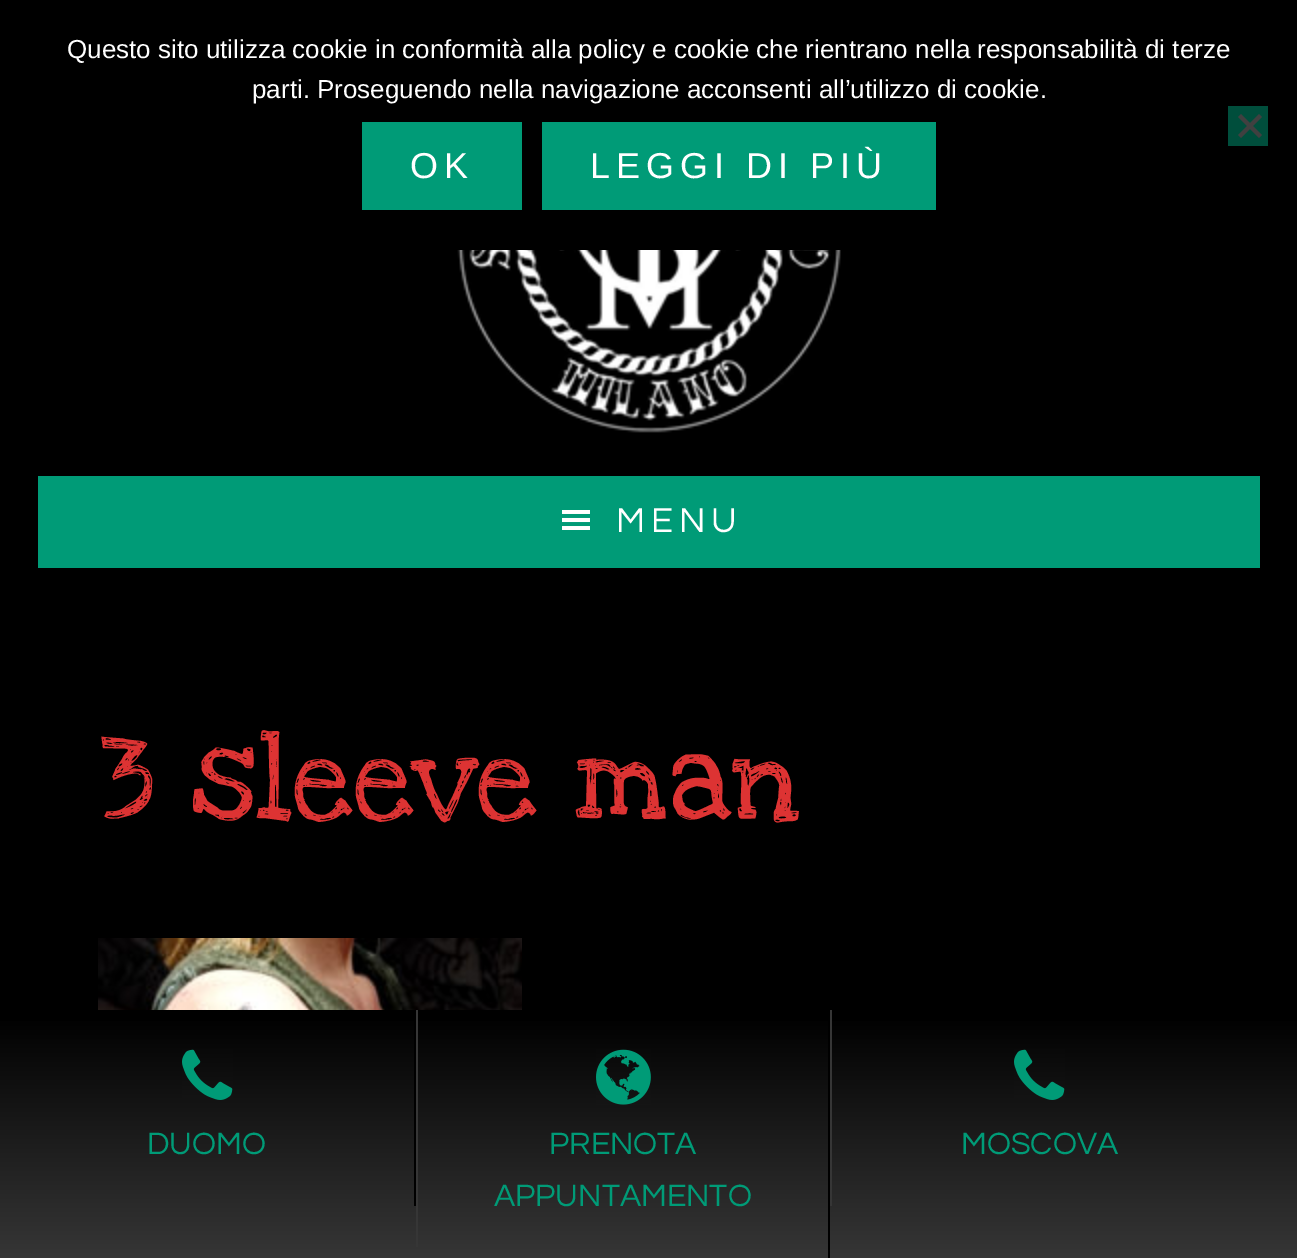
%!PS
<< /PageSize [1297 1258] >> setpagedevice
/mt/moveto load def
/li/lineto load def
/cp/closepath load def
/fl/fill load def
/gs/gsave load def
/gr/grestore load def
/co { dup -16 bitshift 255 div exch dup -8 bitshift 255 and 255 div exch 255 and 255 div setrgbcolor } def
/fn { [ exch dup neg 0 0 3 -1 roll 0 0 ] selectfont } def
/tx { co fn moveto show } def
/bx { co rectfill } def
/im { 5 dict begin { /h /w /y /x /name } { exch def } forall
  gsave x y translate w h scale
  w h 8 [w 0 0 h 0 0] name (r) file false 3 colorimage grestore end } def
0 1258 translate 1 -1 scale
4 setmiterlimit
0 0 1297 1258 16#000000 bx
1228 106 40 40 16#004E3C bx
16#404040 co
1259 114 mt 1262 117 li 1241 138 li 1238 135 li cp fl
1238 117 mt 1241 114 li 1262 135 li 1259 138 li cp fl
362 122 160 88 16#009B77 bx
542 122 394 88 16#009B77 bx
(media/1.raw) 457 250 384 183 im
38 476 1222 92 16#009B77 bx
(media/2.raw) 562 510 28 20 im
(media/3.raw) 98 938 424 72 im
gs 0 1021 mt 1297 1021 li 1297 1258 li 0 1258 li cp clip newpath
<< /ShadingType 2 /ColorSpace /DeviceRGB /Coords [649 1010 649 1258] /Extend [true true] /Function << /FunctionType 2 /Domain [0 1] /C0 [0 0 0] /C1 [.212 .212 .212] /N 1 >> >> shfill gr
414 1021 2 185 16#000000 bx
(media/4.raw) 182 1049 51 51 im
828 1021 2 237 16#000000 bx
416 1010 2 237 16#363636 bx
(media/5.raw) 596 1049 55 56 im
830 1010 2 196 16#363636 bx
(media/4.raw) 1014 1049 51 51 im
(Questo sito utilizza cookie in conformità alla policy e cookie che rientrano nella responsabilità di terze) 67 58 /LiberationSans-Regular 26 16#FFFFFF tx
(parti. Proseguendo nella navigazione acconsenti all’utilizzo di cookie.) 252 98 /LiberationSans-Regular 26 16#FFFFFF tx
/LiberationSans-Regular 36 fn
410 178 mt 6 0 (OK) ashow
590 178 mt 6 0 (LEGGI DI PIÙ) ashow
/Questrial-Regular 36 fn
616 532 mt 6 0 (MENU) ashow
(3 sleeve man) 99 818 /LoveYaLikeASister-Regular 120 16#DD3333 tx
(DUOMO) 147 1154 /Questrial-Regular 32 16#009B77 tx
(PRENOTA) 549 1154 /Questrial-Regular 32 16#009B77 tx
(APPUNTAMENTO) 494 1206 /Questrial-Regular 32 16#009B77 tx
(MOSCOVA) 961 1154 /Questrial-Regular 32 16#009B77 tx
showpage
